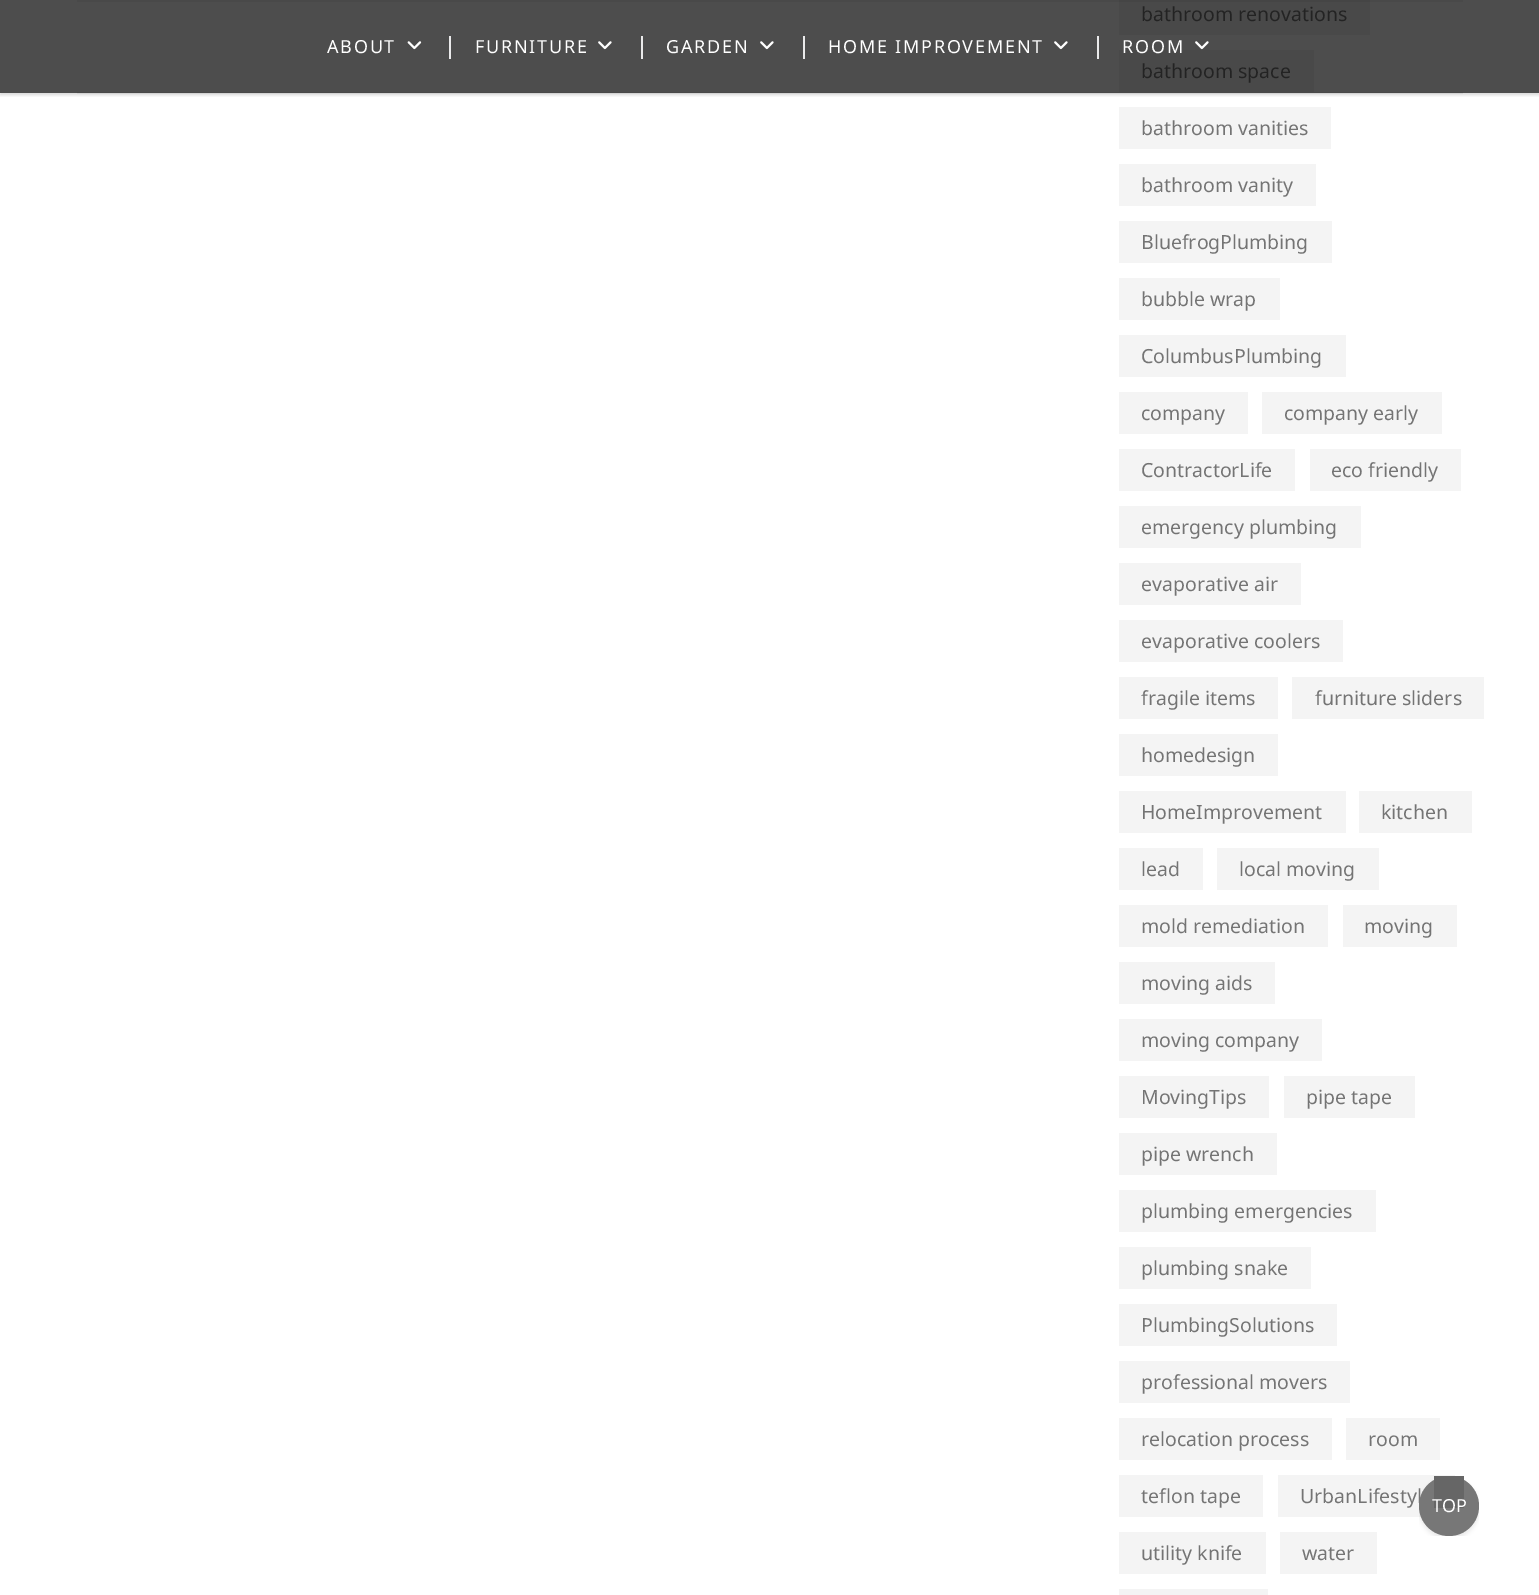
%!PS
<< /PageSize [1539 1595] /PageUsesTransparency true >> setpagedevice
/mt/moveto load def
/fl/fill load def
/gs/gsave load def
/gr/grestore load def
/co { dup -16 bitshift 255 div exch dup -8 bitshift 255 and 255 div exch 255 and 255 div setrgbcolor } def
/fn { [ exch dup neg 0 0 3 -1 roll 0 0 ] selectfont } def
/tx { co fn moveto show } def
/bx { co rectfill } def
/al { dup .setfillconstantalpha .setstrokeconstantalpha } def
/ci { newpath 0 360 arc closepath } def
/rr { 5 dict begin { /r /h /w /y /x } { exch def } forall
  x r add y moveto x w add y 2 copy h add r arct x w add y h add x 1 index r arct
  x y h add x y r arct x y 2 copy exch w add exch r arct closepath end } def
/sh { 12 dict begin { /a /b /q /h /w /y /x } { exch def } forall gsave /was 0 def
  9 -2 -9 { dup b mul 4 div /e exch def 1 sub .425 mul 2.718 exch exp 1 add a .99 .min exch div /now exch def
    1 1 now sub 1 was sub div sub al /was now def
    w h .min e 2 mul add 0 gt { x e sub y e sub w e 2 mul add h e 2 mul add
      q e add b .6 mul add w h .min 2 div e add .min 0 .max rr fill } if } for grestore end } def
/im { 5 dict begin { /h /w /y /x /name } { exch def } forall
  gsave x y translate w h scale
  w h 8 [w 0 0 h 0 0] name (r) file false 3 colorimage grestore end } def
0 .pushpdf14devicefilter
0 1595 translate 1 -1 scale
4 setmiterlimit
0 0 1539 1595 16#FFFFFF bx
0 0 1539 93 16#4D4D4D bx
77 0 1386 2 16#494949 bx
1119 2 251 33 16#494949 bx
1119 0 251 2 16#454545 bx
1119 50 195 42 16#494949 bx
gs
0 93 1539 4 rectclip
16#000000 co
0 2 1539 93 0 1.5 .15 sh
gr
0.05 al
77 92 1386 2 16#000000 bx
1 al
(media/1.raw) 407 41 15 9 im
449 36 2 23 16#EAEAEB bx
(media/2.raw) 598 41 14 9 im
641 36 2 23 16#EAEAEB bx
(media/2.raw) 760 41 14 9 im
803 36 2 23 16#EAEAEB bx
(media/2.raw) 1054 41 14 9 im
1097 36 2 23 16#EAEAEB bx
(media/2.raw) 1195 41 14 9 im
1119 107 212 42 16#F4F4F4 bx
1119 164 197 42 16#F4F4F4 bx
1119 221 213 42 16#F4F4F4 bx
1119 278 161 42 16#F4F4F4 bx
1119 335 227 42 16#F4F4F4 bx
1119 392 129 42 16#F4F4F4 bx
1262 392 180 42 16#F4F4F4 bx
1119 449 176 42 16#F4F4F4 bx
1310 449 151 42 16#F4F4F4 bx
1119 506 242 42 16#F4F4F4 bx
1119 563 182 42 16#F4F4F4 bx
1119 620 224 42 16#F4F4F4 bx
1119 677 159 42 16#F4F4F4 bx
1292 677 192 42 16#F4F4F4 bx
1119 734 159 42 16#F4F4F4 bx
1119 791 227 42 16#F4F4F4 bx
1359 791 113 42 16#F4F4F4 bx
1119 848 84 42 16#F4F4F4 bx
1217 848 162 42 16#F4F4F4 bx
1119 905 209 42 16#F4F4F4 bx
1343 905 114 42 16#F4F4F4 bx
1119 962 156 42 16#F4F4F4 bx
1119 1019 203 42 16#F4F4F4 bx
1119 1076 150 42 16#F4F4F4 bx
1284 1076 131 42 16#F4F4F4 bx
1119 1133 158 42 16#F4F4F4 bx
1119 1190 257 42 16#F4F4F4 bx
1119 1247 192 42 16#F4F4F4 bx
1119 1304 218 42 16#F4F4F4 bx
1119 1361 231 42 16#F4F4F4 bx
1119 1418 213 42 16#F4F4F4 bx
1346 1418 94 42 16#F4F4F4 bx
1119 1475 144 42 16#F4F4F4 bx
1278 1475 177 42 16#F4F4F4 bx
1119 1532 147 42 16#F4F4F4 bx
1280 1532 97 42 16#F4F4F4 bx
1119 1589 149 6 16#F4F4F4 bx
gs
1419 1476 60 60 rectclip
16#000000 co
1419 1479 60 60 30 2 .08 sh
gr
/NotoSans-Regular 18 fn
16#FFFFFF co
327 53 mt 1.75 0 (ABOUT) ashow
475 53 mt 1.75 0 (FURNITURE) ashow
666 53 mt 1.75 0 (GARDEN) ashow
828 53 mt 1.75 0 (HOME IMPROVEMENT) ashow
1122 53 mt 1.75 0 (ROOM) ashow
(bathroom renovations) 1141 21 /NotoSans-Regular 19.5 16#232323 tx
(bathroom space) 1141 78 /NotoSans-Regular 19.5 16#232323 tx
(bathroom vanities) 1141 135 /NotoSans-Regular 19.5 16#747474 tx
(bathroom vanity) 1141 192 /NotoSans-Regular 19.5 16#747474 tx
(BluefrogPlumbing) 1141 249 /NotoSans-Regular 19.5 16#747474 tx
(bubble wrap) 1141 306 /NotoSans-Regular 19.5 16#747474 tx
(ColumbusPlumbing) 1141 363 /NotoSans-Regular 19.5 16#747474 tx
(company) 1141 420 /NotoSans-Regular 19.5 16#747474 tx
(company early) 1284 420 /NotoSans-Regular 19.5 16#747474 tx
(ContractorLife) 1141 477 /NotoSans-Regular 19.5 16#747474 tx
(eco friendly) 1331 477 /NotoSans-Regular 19.5 16#747474 tx
(emergency plumbing) 1141 534 /NotoSans-Regular 19.5 16#747474 tx
(evaporative air) 1141 591 /NotoSans-Regular 19.5 16#747474 tx
(evaporative coolers) 1141 648 /NotoSans-Regular 19.5 16#747474 tx
(fragile items) 1141 705 /NotoSans-Regular 19.5 16#747474 tx
(furniture sliders) 1315 705 /NotoSans-Regular 19.5 16#747474 tx
(homedesign) 1141 762 /NotoSans-Regular 19.5 16#747474 tx
(HomeImprovement) 1141 819 /NotoSans-Regular 19.5 16#747474 tx
(kitchen) 1381 819 /NotoSans-Regular 19.5 16#747474 tx
(lead) 1141 876 /NotoSans-Regular 19.5 16#747474 tx
(local moving) 1239 876 /NotoSans-Regular 19.5 16#747474 tx
(mold remediation) 1141 933 /NotoSans-Regular 19.5 16#747474 tx
(moving) 1364 933 /NotoSans-Regular 19.5 16#747474 tx
(moving aids) 1141 990 /NotoSans-Regular 19.5 16#747474 tx
(moving company) 1141 1047 /NotoSans-Regular 19.5 16#747474 tx
(MovingTips) 1141 1104 /NotoSans-Regular 19.5 16#747474 tx
(pipe tape) 1306 1104 /NotoSans-Regular 19.5 16#747474 tx
(pipe wrench) 1141 1161 /NotoSans-Regular 19.5 16#747474 tx
(plumbing emergencies) 1141 1218 /NotoSans-Regular 19.5 16#747474 tx
(plumbing snake) 1141 1275 /NotoSans-Regular 19.5 16#747474 tx
(PlumbingSolutions) 1141 1332 /NotoSans-Regular 19.5 16#747474 tx
(professional movers) 1141 1389 /NotoSans-Regular 19.5 16#747474 tx
(relocation process) 1141 1446 /NotoSans-Regular 19.5 16#747474 tx
(room) 1368 1446 /NotoSans-Regular 19.5 16#747474 tx
(teflon tape) 1141 1503 /NotoSans-Regular 19.5 16#747474 tx
(UrbanLifestyl) 1300 1503 /NotoSans-Regular 19.5 16#747474 tx
(utility knife) 1141 1560 /NotoSans-Regular 19.5 16#747474 tx
(water) 1302 1560 /NotoSans-Regular 19.5 16#747474 tx
16#777777 co
1449 1506 30 ci fl
1434 1476 30 32 16#666666 bx
(TOP) 1432 1512 /NotoSans-Regular 18 16#FFFFFF tx
.poppdf14devicefilter showpage
